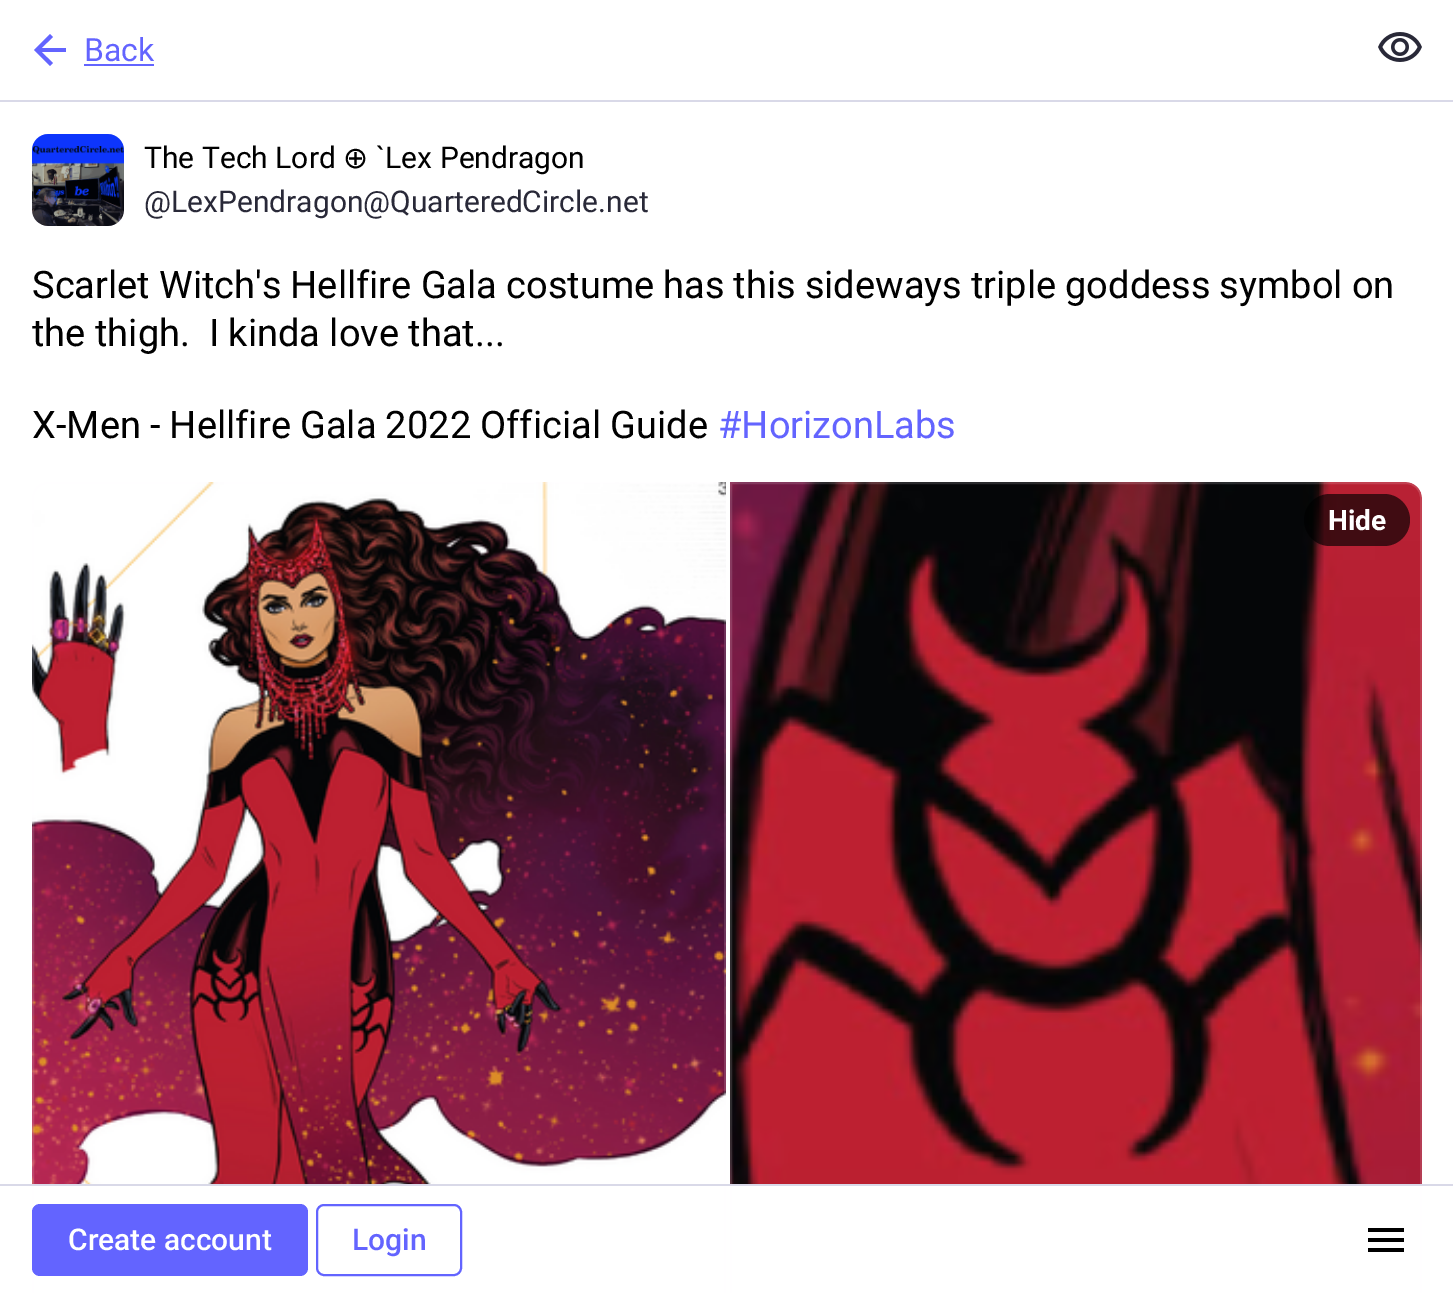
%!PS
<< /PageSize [1453 1293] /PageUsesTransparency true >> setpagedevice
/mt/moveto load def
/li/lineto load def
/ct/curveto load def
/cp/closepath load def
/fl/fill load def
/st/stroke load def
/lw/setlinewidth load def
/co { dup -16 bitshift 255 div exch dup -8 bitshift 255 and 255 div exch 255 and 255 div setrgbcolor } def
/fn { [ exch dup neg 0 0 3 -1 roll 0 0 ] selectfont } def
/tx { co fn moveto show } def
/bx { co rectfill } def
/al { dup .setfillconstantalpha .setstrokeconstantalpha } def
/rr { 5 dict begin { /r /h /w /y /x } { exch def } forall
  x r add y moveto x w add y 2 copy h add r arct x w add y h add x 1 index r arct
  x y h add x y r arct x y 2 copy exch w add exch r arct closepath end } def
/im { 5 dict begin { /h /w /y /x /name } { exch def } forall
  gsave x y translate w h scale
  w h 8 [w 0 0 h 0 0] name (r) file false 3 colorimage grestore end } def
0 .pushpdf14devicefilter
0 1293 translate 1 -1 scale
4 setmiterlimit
0 0 1453 1293 16#FFFFFF bx
0 100 1453 2 16#D9D9E8 bx
16#6364FF co
41.5 52 mt 53 63 li 50 66 li 34 50 li 50 34 li 53 37 li 41.5 48 li 66 48 li 66 52 li cp fl
84 64 70 2 16#6364FF bx
(media/1.raw) 1378 32 44 30 im
16#E8E6F0 co
32 134 92 92 16 rr fl
(media/2.raw) 32 134 92 92 im
(media/3.raw) 32 482 694 702 im
0.15 al
16#FCF8FF co
2 lw
48 483 mt 725 483 li 725 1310 li 48 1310 li 39.5 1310 33 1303.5 33 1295 ct 33 498 li 33 489.5 39.5 483 48 483 ct cp st
1 al
(media/4.raw) 730 482 692 702 im
0.15 al
731 483 mt 1406 483 li 1414.5 483 1421 489.5 1421 498 ct 1421 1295 li 1421 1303.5 1414.5 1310 1406 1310 ct 731 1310 li cp st
0.65 al
16#000000 co
1304 494 106 52 26 rr fl
1 al
0 1184 1453 2 16#D9D9E8 bx
16#6364FF co
32 1204 276 72 8 rr fl
317 1205 144 70 7 rr st
16#000000 co
1368 1252 mt 1368 1248 li 1404 1248 li 1404 1252 li cp 1368 1242 mt 1368 1238 li 1404 1238 li 1404 1242 li cp 1368 1232 mt 1368 1228 li 1404 1228 li 1404 1232 li cp fl
(Back) 84 61 /Roboto-Regular 32 16#6364FF tx
(The Tech Lord) 144 168 /Roboto-Regular 30 16#000000 tx
(⊕) 343 168 /DejaVuSans-Regular 30 16#000000 tx
(`Lex Pendragon) 376 168 /Roboto-Regular 30 16#000000 tx
(@LexPendragon@QuarteredCircle.net) 144 212 /Roboto-Regular 30 16#292938 tx
/Roboto-Regular 38 fn
16#000000 co
32 298 mt -.4 0 32 (Scarlet Witch's Hellfire Gala costume has this sideways triple goddess symbol on) widthshow
(the thigh.  I kinda love that...) 32 346 /Roboto-Regular 38 16#000000 tx
32 438 mt -.25 0 32 (X-Men - Hellfire Gala 2022 Official Guide) widthshow
(#HorizonLabs) 718 438 /Roboto-Regular 38 16#6364FF tx
(Hide) 1328 530 /Roboto-Bold 28 16#FFFFFF tx
(Create account) 68 1250 /Roboto-Medium 30 16#FFFFFF tx
(Login) 352 1250 /Roboto-Medium 30 16#6364FF tx
.poppdf14devicefilter showpage
